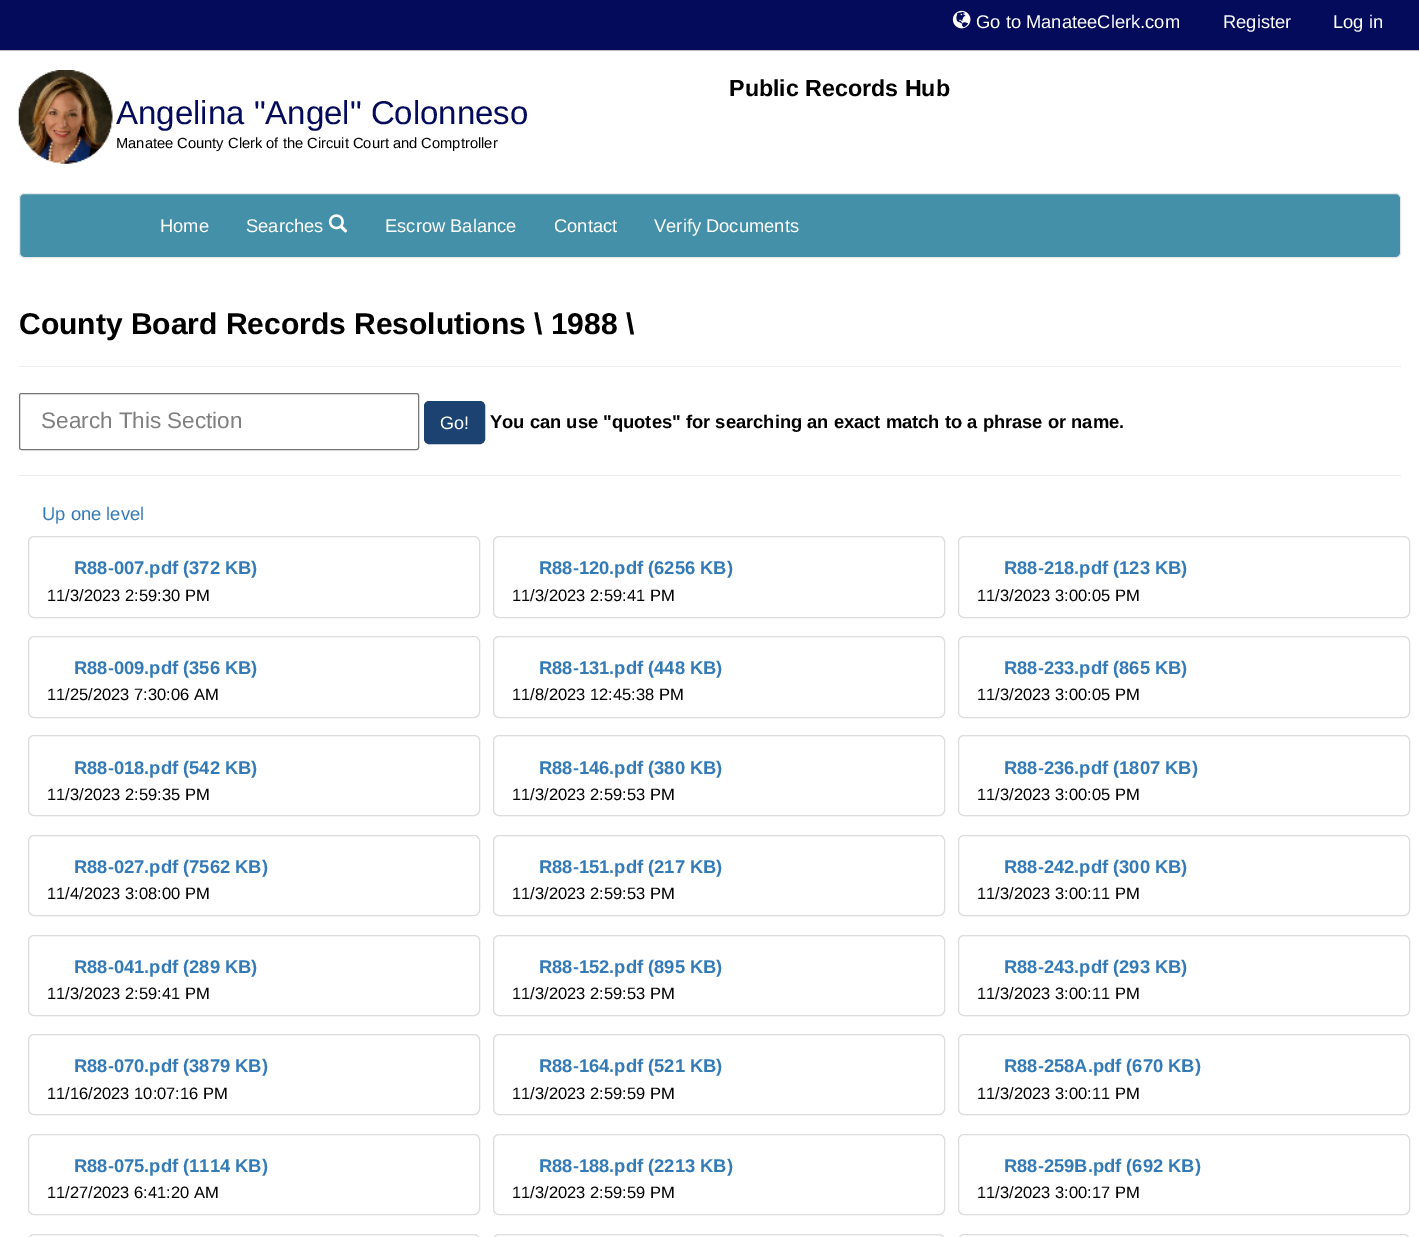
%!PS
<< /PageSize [1419 1237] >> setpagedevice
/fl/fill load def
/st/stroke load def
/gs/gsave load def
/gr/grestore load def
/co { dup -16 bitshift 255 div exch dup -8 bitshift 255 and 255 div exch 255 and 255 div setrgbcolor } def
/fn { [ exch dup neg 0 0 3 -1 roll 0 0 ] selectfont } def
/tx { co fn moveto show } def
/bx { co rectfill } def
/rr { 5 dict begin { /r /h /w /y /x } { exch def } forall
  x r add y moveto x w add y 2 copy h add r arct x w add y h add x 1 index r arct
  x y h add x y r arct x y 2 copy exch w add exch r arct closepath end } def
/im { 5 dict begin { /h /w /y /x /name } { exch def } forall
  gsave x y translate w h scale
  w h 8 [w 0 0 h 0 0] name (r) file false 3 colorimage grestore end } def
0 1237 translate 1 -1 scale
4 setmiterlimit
0 0 1419 1237 16#FFFFFF bx
0 0 1419 50 16#050B5B bx
0 50 1419 1 16#BBBBBB bx
(media/1.raw) 952 10 19 19 im
(media/2.raw) 18 70 95 94 im
16#4490A8 co
19.5 193.5 1381 64 4.5 rr gs fl gr
16#E7E7E7 co
st
(media/3.raw) 328 214 20 19 im
19 366 1382 1 16#EEEEEE bx
16#767676 co
19.5 393.5 399 56 2 rr st
16#1B4271 co
424.5 401.5 60 42 4.5 rr gs fl gr
st
19 475 1382 1 16#EEEEEE bx
16#DDDDDD co
28.5 536.5 451 81 5.5 rr st
493.5 536.5 451 81 5.5 rr st
958.5 536.5 451 81 5.5 rr st
28.5 636.5 451 81 5.5 rr st
493.5 636.5 451 81 5.5 rr st
958.5 636.5 451 81 5.5 rr st
28.5 735.5 451 80 5.5 rr st
493.5 735.5 451 80 5.5 rr st
958.5 735.5 451 80 5.5 rr st
28.5 835.5 451 80 5.5 rr st
493.5 835.5 451 80 5.5 rr st
958.5 835.5 451 80 5.5 rr st
28.5 935.5 451 80 5.5 rr st
493.5 935.5 451 80 5.5 rr st
958.5 935.5 451 80 5.5 rr st
28.5 1034.5 451 80 5.5 rr st
493.5 1034.5 451 80 5.5 rr st
958.5 1034.5 451 80 5.5 rr st
28.5 1134.5 451 80 5.5 rr st
493.5 1134.5 451 80 5.5 rr st
958.5 1134.5 451 80 5.5 rr st
28.5 1234.5 451 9 5.5 rr st
493.5 1234.5 451 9 5.5 rr st
958.5 1234.5 451 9 5.5 rr st
(Go to ManateeClerk.com) 976 28 /LiberationSans-Regular 18.35 16#FFFFFF tx
(Register) 1223 28 /LiberationSans-Regular 18.35 16#FFFFFF tx
(Log in) 1333 28 /LiberationSans-Regular 18.35 16#FFFFFF tx
(Public Records Hub) 729 96 /LiberationSans-Bold 23.25 16#000000 tx
(Angelina "Angel" Colonneso) 116 124 /LiberationSans-Regular 33 16#050B5B tx
(Manatee County Clerk of the Circuit Court and Comptroller) 116 148 /LiberationSans-Regular 14.7 16#000000 tx
(Home) 160 232 /LiberationSans-Regular 18.35 16#FFFFFF tx
(Searches) 246 232 /LiberationSans-Regular 18.35 16#FFFFFF tx
(Escrow Balance) 385 232 /LiberationSans-Regular 18.35 16#FFFFFF tx
(Contact) 554 232 /LiberationSans-Regular 18.35 16#FFFFFF tx
(Verify Documents) 654 232 /LiberationSans-Regular 18.35 16#FFFFFF tx
(County Board Records Resolutions \\ 1988 \\) 19 334 /LiberationSans-Bold 30 16#000000 tx
(Search This Section) 41 428 /LiberationSans-Regular 22.5 16#808080 tx
(Go!) 440 429 /LiberationSans-Regular 18 16#FFFFFF tx
(You can use "quotes" for searching an exact match to a phrase or name.) 490 428 /LiberationSans-Bold 18.35 16#000000 tx
(Up one level) 42 520 /LiberationSans-Regular 18.35 16#337AB7 tx
(R88-007.pdf \(372 KB\)) 74 574 /LiberationSans-Bold 18.35 16#337AB7 tx
(11/3/2023 2:59:30 PM) 47 601 /LiberationSans-Regular 16.5 16#000000 tx
(R88-120.pdf \(6256 KB\)) 539 574 /LiberationSans-Bold 18.35 16#337AB7 tx
(11/3/2023 2:59:41 PM) 512 601 /LiberationSans-Regular 16.5 16#000000 tx
(R88-218.pdf \(123 KB\)) 1004 574 /LiberationSans-Bold 18.35 16#337AB7 tx
(11/3/2023 3:00:05 PM) 977 601 /LiberationSans-Regular 16.5 16#000000 tx
(R88-009.pdf \(356 KB\)) 74 674 /LiberationSans-Bold 18.35 16#337AB7 tx
(11/25/2023 7:30:06 AM) 47 700 /LiberationSans-Regular 16.5 16#000000 tx
(R88-131.pdf \(448 KB\)) 539 674 /LiberationSans-Bold 18.35 16#337AB7 tx
(11/8/2023 12:45:38 PM) 512 700 /LiberationSans-Regular 16.5 16#000000 tx
(R88-233.pdf \(865 KB\)) 1004 674 /LiberationSans-Bold 18.35 16#337AB7 tx
(11/3/2023 3:00:05 PM) 977 700 /LiberationSans-Regular 16.5 16#000000 tx
(R88-018.pdf \(542 KB\)) 74 774 /LiberationSans-Bold 18.35 16#337AB7 tx
(11/3/2023 2:59:35 PM) 47 800 /LiberationSans-Regular 16.5 16#000000 tx
(R88-146.pdf \(380 KB\)) 539 774 /LiberationSans-Bold 18.35 16#337AB7 tx
(11/3/2023 2:59:53 PM) 512 800 /LiberationSans-Regular 16.5 16#000000 tx
(R88-236.pdf \(1807 KB\)) 1004 774 /LiberationSans-Bold 18.35 16#337AB7 tx
(11/3/2023 3:00:05 PM) 977 800 /LiberationSans-Regular 16.5 16#000000 tx
(R88-027.pdf \(7562 KB\)) 74 873 /LiberationSans-Bold 18.35 16#337AB7 tx
(11/4/2023 3:08:00 PM) 47 899 /LiberationSans-Regular 16.5 16#000000 tx
(R88-151.pdf \(217 KB\)) 539 873 /LiberationSans-Bold 18.35 16#337AB7 tx
(11/3/2023 2:59:53 PM) 512 899 /LiberationSans-Regular 16.5 16#000000 tx
(R88-242.pdf \(300 KB\)) 1004 873 /LiberationSans-Bold 18.35 16#337AB7 tx
(11/3/2023 3:00:11 PM) 977 899 /LiberationSans-Regular 16.5 16#000000 tx
(R88-041.pdf \(289 KB\)) 74 973 /LiberationSans-Bold 18.35 16#337AB7 tx
(11/3/2023 2:59:41 PM) 47 999 /LiberationSans-Regular 16.5 16#000000 tx
(R88-152.pdf \(895 KB\)) 539 973 /LiberationSans-Bold 18.35 16#337AB7 tx
(11/3/2023 2:59:53 PM) 512 999 /LiberationSans-Regular 16.5 16#000000 tx
(R88-243.pdf \(293 KB\)) 1004 973 /LiberationSans-Bold 18.35 16#337AB7 tx
(11/3/2023 3:00:11 PM) 977 999 /LiberationSans-Regular 16.5 16#000000 tx
(R88-070.pdf \(3879 KB\)) 74 1072 /LiberationSans-Bold 18.35 16#337AB7 tx
(11/16/2023 10:07:16 PM) 47 1099 /LiberationSans-Regular 16.5 16#000000 tx
(R88-164.pdf \(521 KB\)) 539 1072 /LiberationSans-Bold 18.35 16#337AB7 tx
(11/3/2023 2:59:59 PM) 512 1099 /LiberationSans-Regular 16.5 16#000000 tx
(R88-258A.pdf \(670 KB\)) 1004 1072 /LiberationSans-Bold 18.35 16#337AB7 tx
(11/3/2023 3:00:11 PM) 977 1099 /LiberationSans-Regular 16.5 16#000000 tx
(R88-075.pdf \(1114 KB\)) 74 1172 /LiberationSans-Bold 18.35 16#337AB7 tx
(11/27/2023 6:41:20 AM) 47 1198 /LiberationSans-Regular 16.5 16#000000 tx
(R88-188.pdf \(2213 KB\)) 539 1172 /LiberationSans-Bold 18.35 16#337AB7 tx
(11/3/2023 2:59:59 PM) 512 1198 /LiberationSans-Regular 16.5 16#000000 tx
(R88-259B.pdf \(692 KB\)) 1004 1172 /LiberationSans-Bold 18.35 16#337AB7 tx
(11/3/2023 3:00:17 PM) 977 1198 /LiberationSans-Regular 16.5 16#000000 tx
showpage
